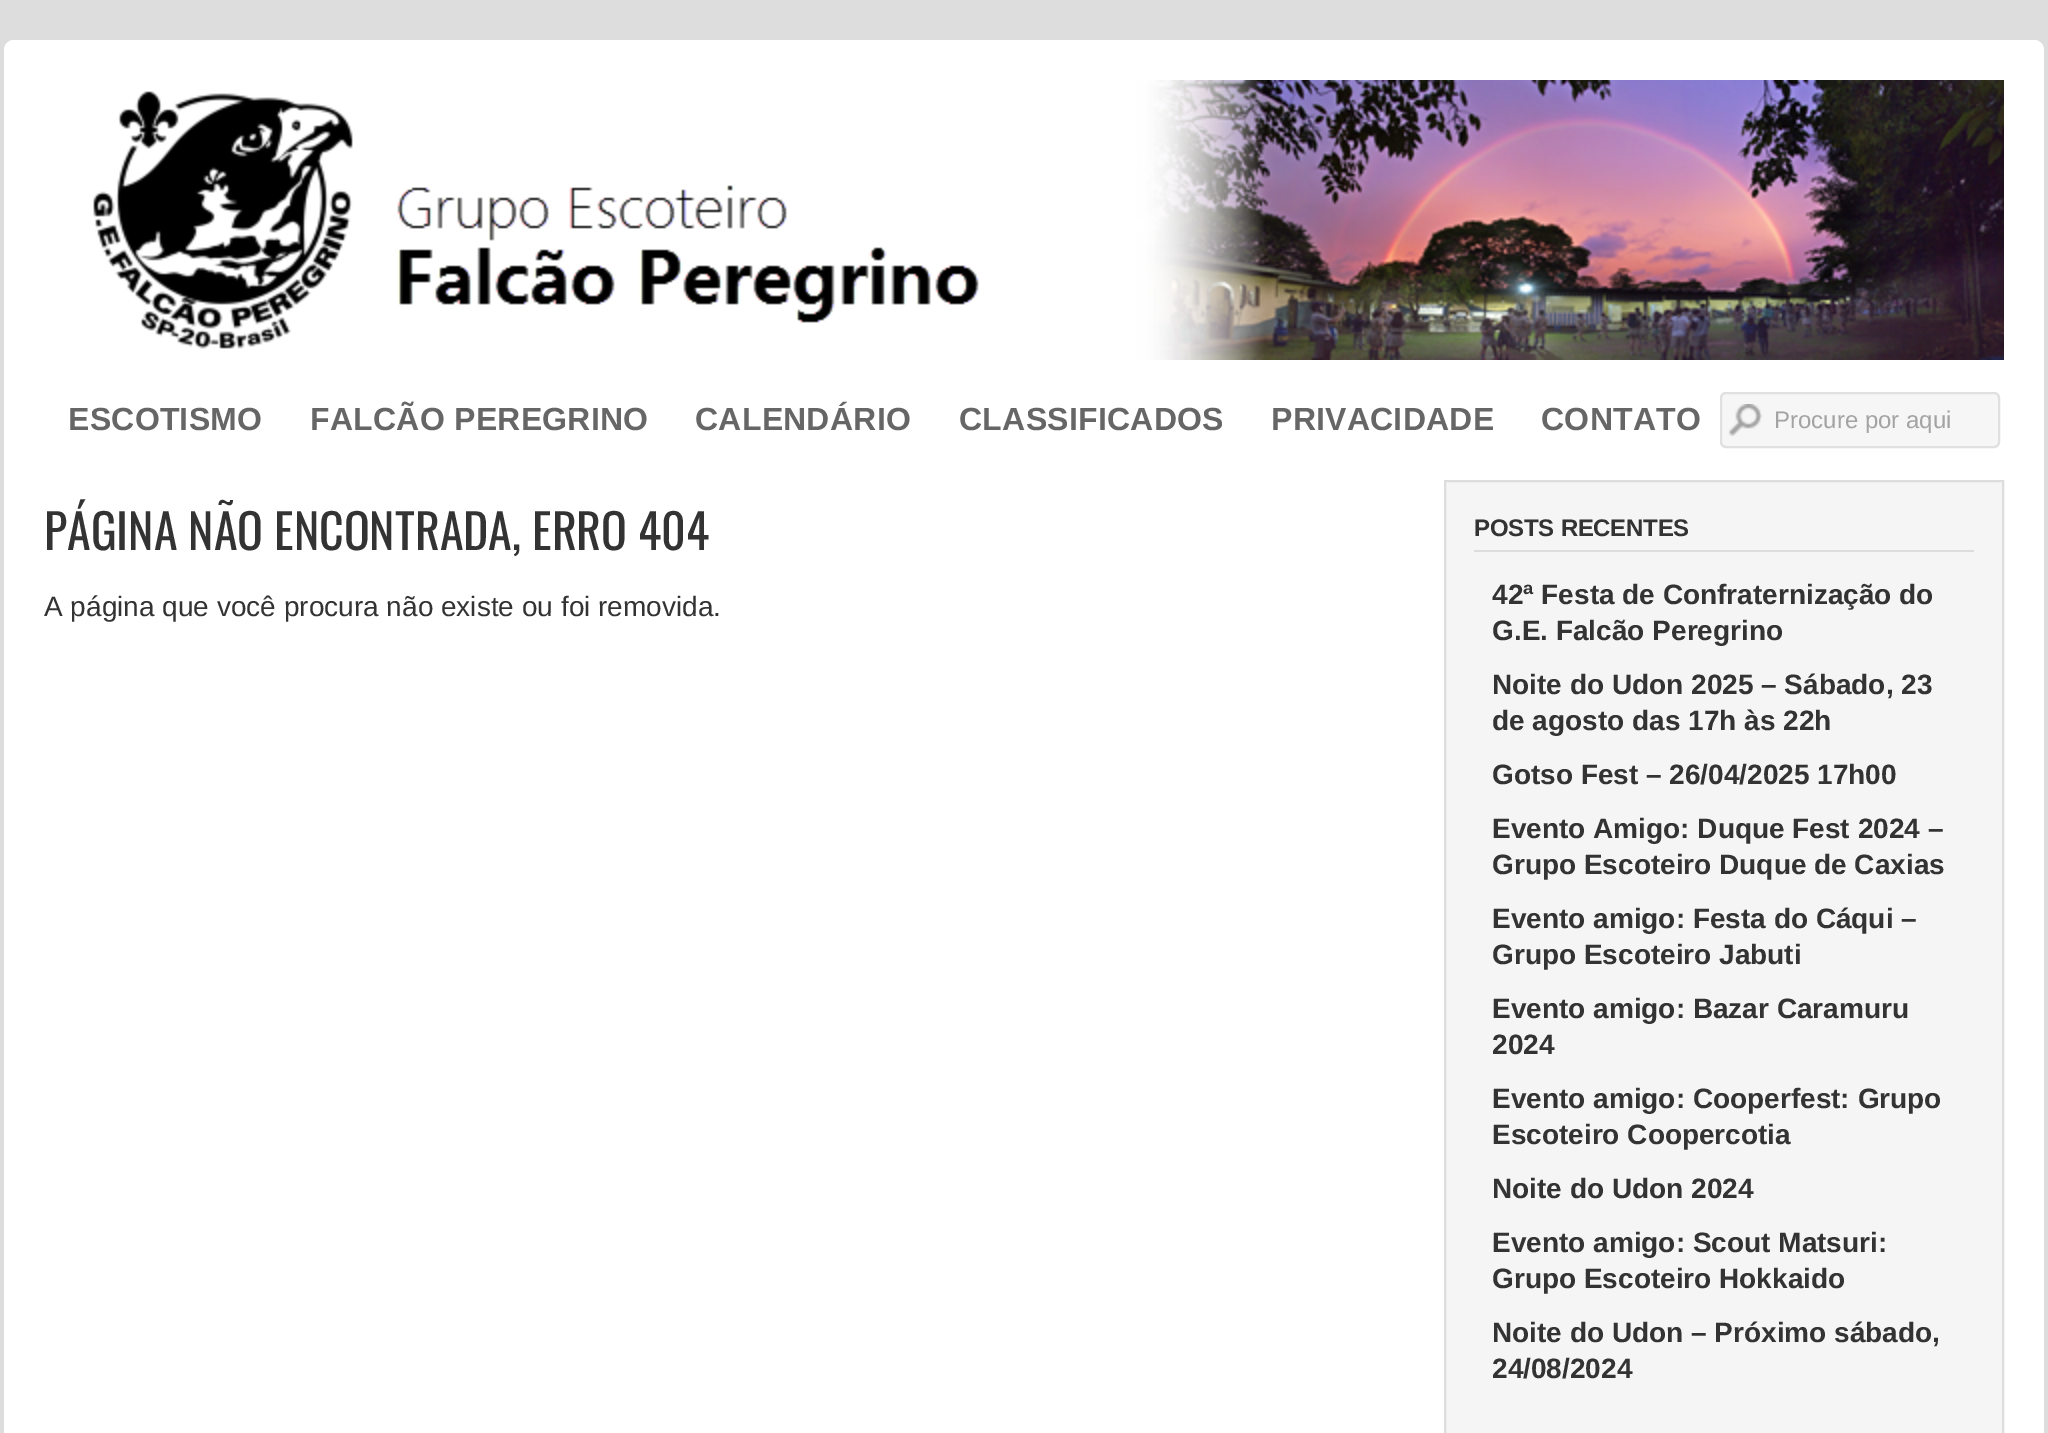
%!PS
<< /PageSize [2048 1433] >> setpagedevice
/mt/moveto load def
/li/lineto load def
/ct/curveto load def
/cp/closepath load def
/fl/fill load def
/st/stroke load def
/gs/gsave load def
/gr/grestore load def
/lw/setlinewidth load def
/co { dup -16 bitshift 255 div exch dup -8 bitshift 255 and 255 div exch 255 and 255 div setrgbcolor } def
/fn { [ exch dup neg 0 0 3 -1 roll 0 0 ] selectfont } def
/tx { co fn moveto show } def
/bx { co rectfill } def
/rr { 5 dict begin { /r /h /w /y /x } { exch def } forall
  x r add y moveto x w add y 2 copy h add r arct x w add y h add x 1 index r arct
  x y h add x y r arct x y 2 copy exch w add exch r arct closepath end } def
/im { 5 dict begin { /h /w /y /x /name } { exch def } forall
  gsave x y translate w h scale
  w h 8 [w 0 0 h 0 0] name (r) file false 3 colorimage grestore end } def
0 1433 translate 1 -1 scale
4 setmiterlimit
0 0 2048 1433 16#DDDDDD bx
16#FFFFFF co
14 40 mt 2034 40 li 2039.5 40 2044 44.5 2044 50 ct 2044 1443 li 4 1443 li 4 50 li 4 44.5 8.5 40 14 40 ct cp fl
(media/1.raw) 93 80 1911 280 im
16#F6F6F6 co
1720 392 280 56 6 rr fl
(media/2.raw) 1728 404 34 32 im
16#E0E0E0 co
2 lw
1721 393 278 54 5 rr st
16#F5F5F5 co
1445 481 mt 2003 481 li 2003 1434 li 1445 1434 li cp gs fl gr
16#DDDDDD co
st
1474 550 500 2 16#DDDDDD bx
/LiberationSans-Bold 32 fn
16#666666 co
68 430 mt .25 0 (ESCOTISMO) ashow
310 430 mt .25 0 (FALCÃO PEREGRINO) ashow
695 430 mt .25 0 (CALENDÁRIO) ashow
959 430 mt .25 0 (CLASSIFICADOS) ashow
1271 430 mt .25 0 (PRIVACIDADE) ashow
1541 430 mt .25 0 (CONTATO) ashow
(Procure por aqui) 1774 428 /LiberationSans-Regular 24 16#A3A3A3 tx
(PÁGINA NÃO ENCONTRADA, ERRO 404) 44 550 /Oswald-Regular 48 16#333333 tx
(A página que você procura não existe ou foi removida.) 44 616 /LiberationSans-Regular 28 16#333333 tx
/LiberationSans-Bold 24 fn
1474 536 mt -.25 0 (POSTS RECENTES) ashow
(42ª Festa de Confraternização do) 1492 604 /LiberationSans-Bold 28 16#333333 tx
(G.E. Falcão Peregrino) 1492 640 /LiberationSans-Bold 28 16#333333 tx
(Noite do Udon 2025 – Sábado, 23) 1492 694 /LiberationSans-Bold 28 16#333333 tx
(de agosto das 17h às 22h) 1492 730 /LiberationSans-Bold 28 16#333333 tx
(Gotso Fest – 26/04/2025 17h00) 1492 784 /LiberationSans-Bold 28 16#333333 tx
(Evento Amigo: Duque Fest 2024 –) 1492 838 /LiberationSans-Bold 28 16#333333 tx
(Grupo Escoteiro Duque de Caxias) 1492 874 /LiberationSans-Bold 28 16#333333 tx
(Evento amigo: Festa do Cáqui –) 1492 928 /LiberationSans-Bold 28 16#333333 tx
(Grupo Escoteiro Jabuti) 1492 964 /LiberationSans-Bold 28 16#333333 tx
(Evento amigo: Bazar Caramuru) 1492 1018 /LiberationSans-Bold 28 16#333333 tx
(2024) 1492 1054 /LiberationSans-Bold 28 16#333333 tx
(Evento amigo: Cooperfest: Grupo) 1492 1108 /LiberationSans-Bold 28 16#333333 tx
(Escoteiro Coopercotia) 1492 1144 /LiberationSans-Bold 28 16#333333 tx
(Noite do Udon 2024) 1492 1198 /LiberationSans-Bold 28 16#333333 tx
(Evento amigo: Scout Matsuri:) 1492 1252 /LiberationSans-Bold 28 16#333333 tx
(Grupo Escoteiro Hokkaido) 1492 1288 /LiberationSans-Bold 28 16#333333 tx
(Noite do Udon – Próximo sábado,) 1492 1342 /LiberationSans-Bold 28 16#333333 tx
(24/08/2024) 1492 1378 /LiberationSans-Bold 28 16#333333 tx
showpage
